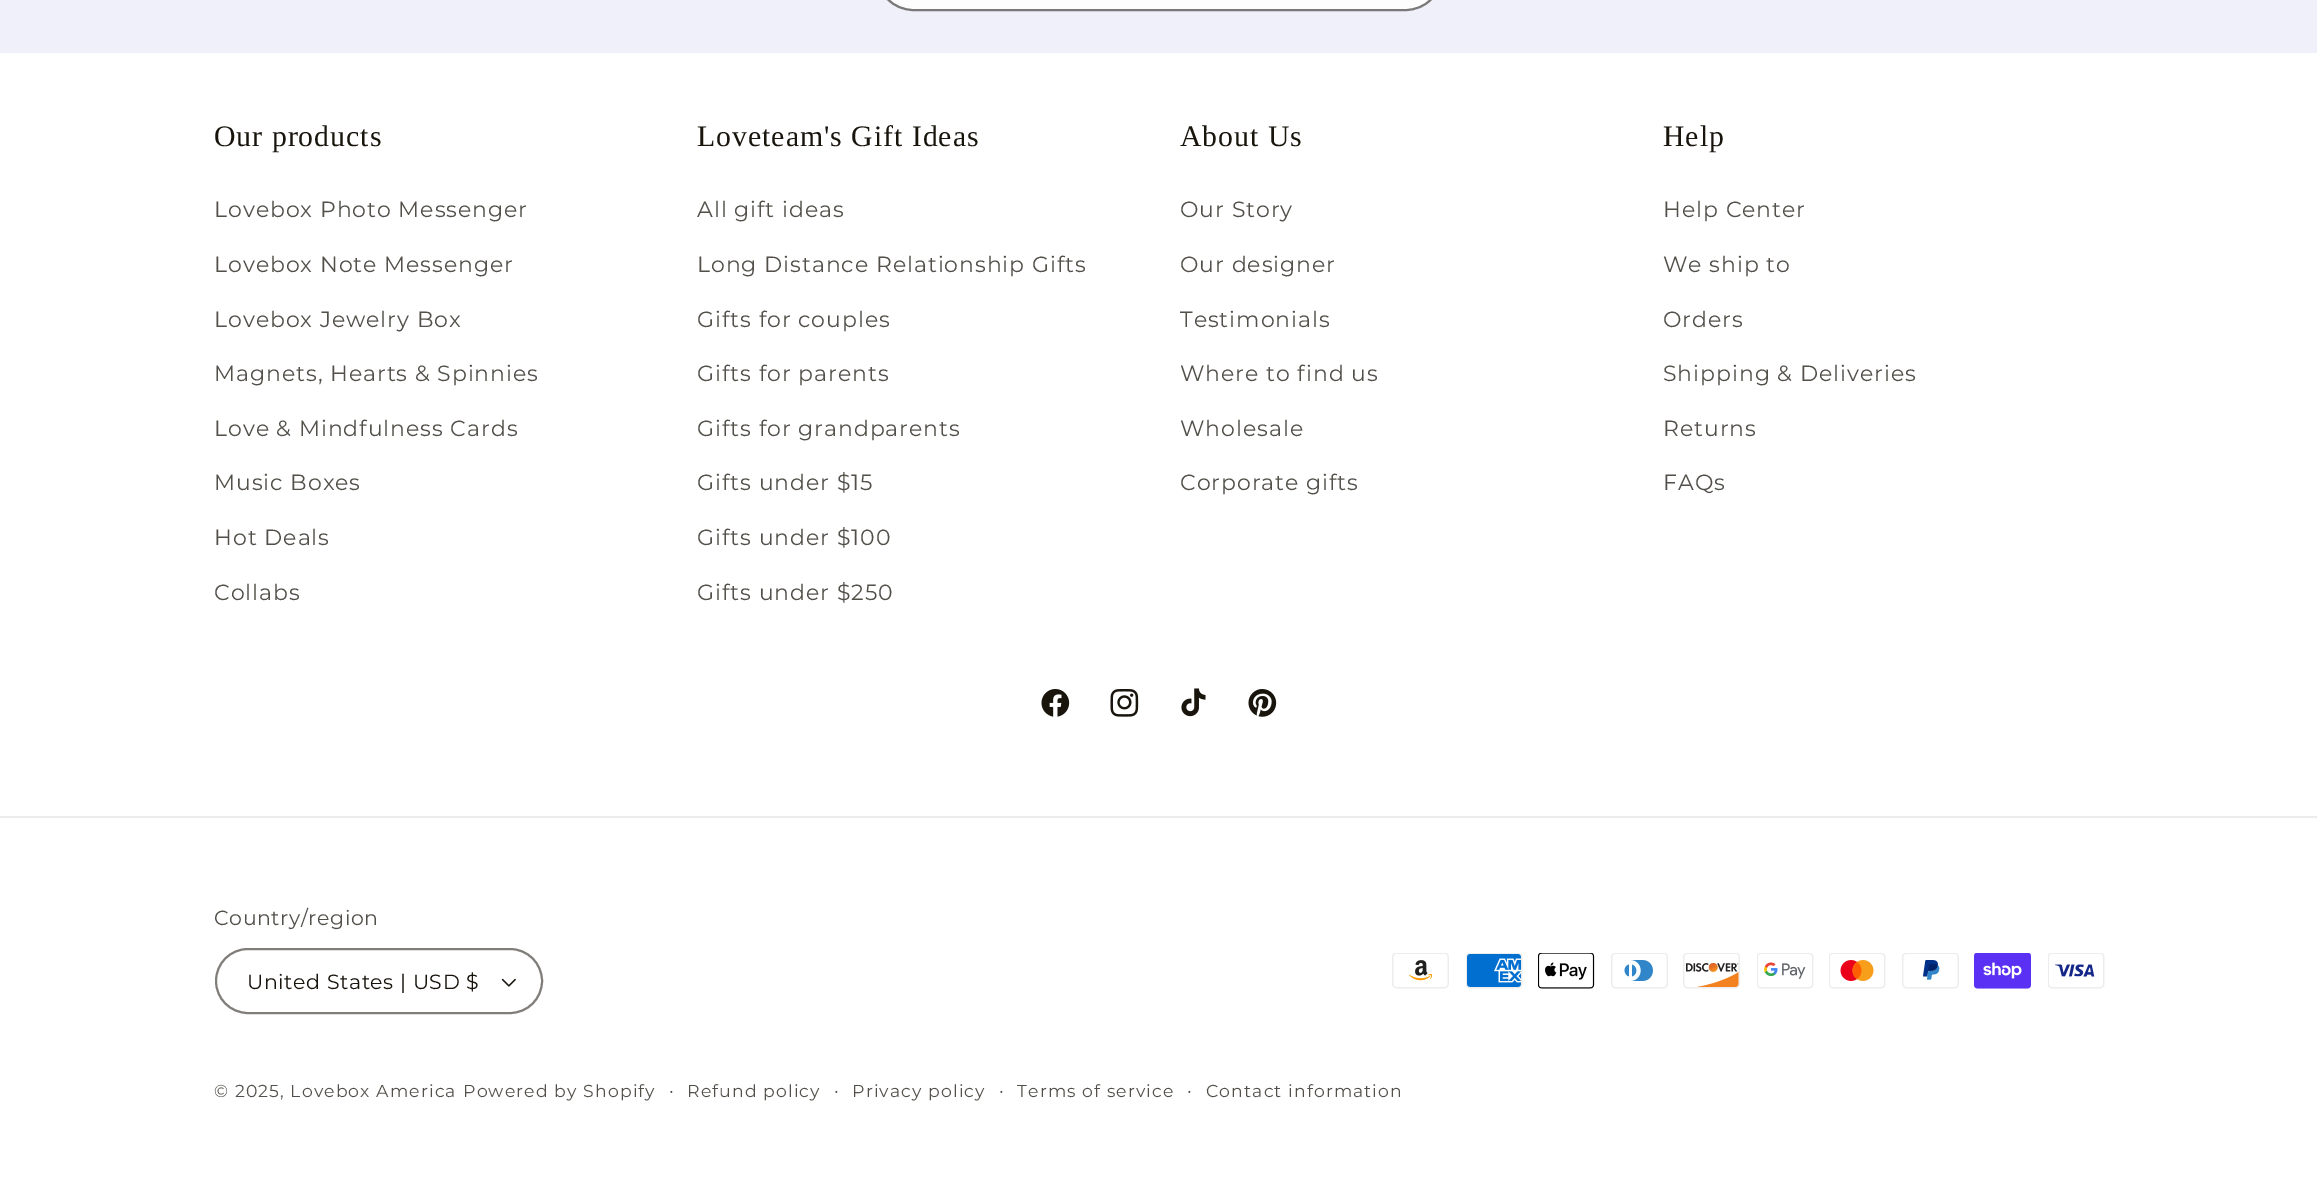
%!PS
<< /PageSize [2317 1188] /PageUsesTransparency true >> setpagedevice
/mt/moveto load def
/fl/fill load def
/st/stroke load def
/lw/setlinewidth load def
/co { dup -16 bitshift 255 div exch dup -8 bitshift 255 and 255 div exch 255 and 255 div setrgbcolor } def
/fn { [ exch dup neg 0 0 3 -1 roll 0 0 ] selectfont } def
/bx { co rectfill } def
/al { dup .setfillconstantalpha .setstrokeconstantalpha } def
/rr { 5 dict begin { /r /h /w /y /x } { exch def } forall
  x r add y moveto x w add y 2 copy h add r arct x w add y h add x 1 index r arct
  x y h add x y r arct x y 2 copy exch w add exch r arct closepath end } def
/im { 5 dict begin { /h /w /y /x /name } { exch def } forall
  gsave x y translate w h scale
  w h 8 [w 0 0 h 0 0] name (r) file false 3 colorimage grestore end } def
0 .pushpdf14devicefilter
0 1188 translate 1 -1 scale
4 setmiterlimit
0 0 2317 1188 16#FFFFFF bx
0 0 2317 53 16#F0F0FA bx
16#FDFDFD co
878 -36 564 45 36 rr fl
0.55 al
16#19150D co
2 lw
877 -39 565 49 36.5 rr st
1 al
(media/1.raw) 1041 689 29 28 im
(media/2.raw) 1110 689 29 28 im
(media/3.raw) 1181 688 25 29 im
(media/4.raw) 1248 689 29 28 im
0 816 2317 2 16#EDECEC bx
(media/5.raw) 501 978 15 9 im
16#817E7A co
216 949 326 64 32 rr st
(media/6.raw) 1392 953 57 36 im
(media/7.raw) 1466 953 57 36 im
(media/8.raw) 1538 953 57 36 im
(media/9.raw) 1611 953 57 36 im
(media/10.raw) 1683 953 57 36 im
(media/11.raw) 1757 953 57 36 im
(media/12.raw) 1829 953 57 36 im
(media/13.raw) 1902 953 57 36 im
(media/14.raw) 1974 953 57 36 im
(media/15.raw) 2048 953 57 36 im
/LiberationSerif-Regular 29.75 fn
16#19150D co
214 146 mt 1 0 (Our products) ashow
/Montserrat-Thin 22 fn
16#53504A co
214 217 mt .95 0 (Lovebox Photo Messenger) ashow
214 272 mt .95 0 (Lovebox Note Messenger) ashow
214 327 mt .95 0 (Lovebox Jewelry Box) ashow
214 381 mt .95 0 (Magnets, Hearts & Spinnies) ashow
214 436 mt .95 0 (Love & Mindfulness Cards) ashow
214 490 mt .95 0 (Music Boxes) ashow
214 545 mt .95 0 (Hot Deals) ashow
214 600 mt .95 0 (Collabs) ashow
/LiberationSerif-Regular 29.75 fn
16#19150D co
697 146 mt 1 0 (Loveteam's Gift Ideas) ashow
/Montserrat-Thin 22 fn
16#53504A co
697 217 mt .95 0 (All gift ideas) ashow
697 272 mt .95 0 (Long Distance Relationship Gifts) ashow
697 327 mt .95 0 (Gifts for couples) ashow
697 381 mt .95 0 (Gifts for parents) ashow
697 436 mt .95 0 (Gifts for grandparents) ashow
697 490 mt .95 0 (Gifts under $15) ashow
697 545 mt .95 0 (Gifts under $100) ashow
697 600 mt .95 0 (Gifts under $250) ashow
/LiberationSerif-Regular 29.75 fn
16#19150D co
1180 146 mt 1 0 (About Us) ashow
/Montserrat-Thin 22 fn
16#53504A co
1180 217 mt .95 0 (Our Story) ashow
1180 272 mt .95 0 (Our designer) ashow
1180 327 mt .95 0 (Testimonials) ashow
1180 381 mt .95 0 (Where to find us) ashow
1180 436 mt .95 0 (Wholesale) ashow
1180 490 mt .95 0 (Corporate gifts) ashow
/LiberationSerif-Regular 29.75 fn
16#19150D co
1663 146 mt 1 0 (Help) ashow
/Montserrat-Thin 22 fn
16#53504A co
1663 217 mt .95 0 (Help Center) ashow
1663 272 mt .95 0 (We ship to) ashow
1663 327 mt .95 0 (Orders) ashow
1663 381 mt .95 0 (Shipping & Deliveries) ashow
1663 436 mt .95 0 (Returns) ashow
1663 490 mt .95 0 (FAQs) ashow
/Montserrat-Thin 20.5 fn
214 925 mt .6 0 (Country/region) ashow
16#19150D co
247 989 mt .6 0 (United States | USD $) ashow
/Montserrat-Thin 17.3 fn
16#53504A co
214 1097 mt 1.1 0 (© 2025, Lovebox America) ashow
463 1097 mt 1.1 0 (Powered by Shopify) ashow
/Montserrat-Thin 19 fn
669 1097 mt 1.1 0 (·) ashow
/Montserrat-Thin 17.3 fn
687 1097 mt 1.1 0 (Refund policy) ashow
/Montserrat-Thin 19 fn
834 1097 mt 1.1 0 (·) ashow
/Montserrat-Thin 17.3 fn
852 1097 mt 1.1 0 (Privacy policy) ashow
/Montserrat-Thin 19 fn
999 1097 mt 1.1 0 (·) ashow
/Montserrat-Thin 17.3 fn
1017 1097 mt 1.1 0 (Terms of service) ashow
/Montserrat-Thin 19 fn
1187 1097 mt 1.1 0 (·) ashow
/Montserrat-Thin 17.3 fn
1206 1097 mt 1.1 0 (Contact information) ashow
.poppdf14devicefilter showpage
